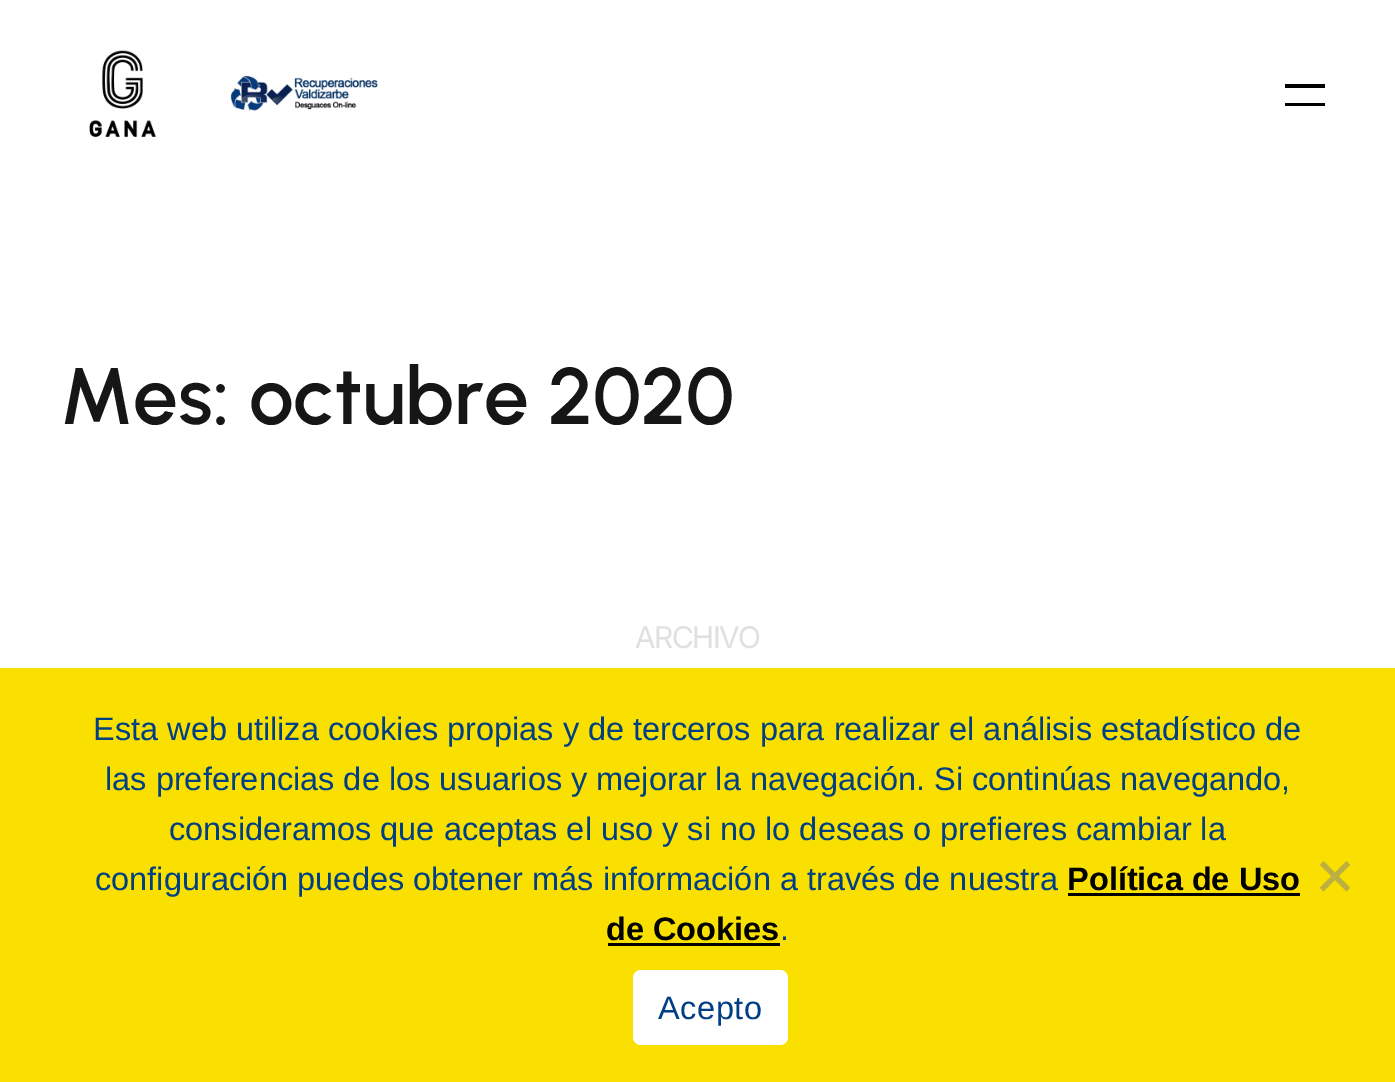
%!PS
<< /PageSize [1395 1082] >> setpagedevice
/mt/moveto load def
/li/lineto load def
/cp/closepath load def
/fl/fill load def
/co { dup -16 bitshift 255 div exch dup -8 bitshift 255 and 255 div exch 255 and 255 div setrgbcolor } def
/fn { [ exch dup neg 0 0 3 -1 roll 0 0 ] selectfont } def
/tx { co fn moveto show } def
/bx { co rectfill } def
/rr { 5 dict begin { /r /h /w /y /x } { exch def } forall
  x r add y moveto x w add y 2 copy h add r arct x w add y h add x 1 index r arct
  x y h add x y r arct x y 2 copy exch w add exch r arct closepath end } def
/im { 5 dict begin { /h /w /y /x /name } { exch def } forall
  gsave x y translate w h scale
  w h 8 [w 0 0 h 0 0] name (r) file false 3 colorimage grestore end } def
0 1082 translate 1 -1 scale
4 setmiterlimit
0 0 1395 1082 16#FFFFFF bx
(media/1.raw) 89 50 289 87 im
1285 84 40 4 16#000000 bx
1285 103 40 3 16#000000 bx
0 668 1395 414 16#F9E000 bx
1068 893 232 3 16#020200 bx
608 943 172 3 16#020200 bx
16#BDB040 co
1346.5 861 mt 1350 865 li 1323.5 891.5 li 1320 887.5 li cp fl
1320 865 mt 1323.5 861 li 1350 887.5 li 1346.5 891.5 li cp fl
16#FFFFFF co
633 970 155 75 8 rr fl
(Mes: octubre 2020) 60 424 /Urbanist-SemiBold 80 16#161616 tx
/Inter-Regular 30 fn
16#E0E0E0 co
635 648 mt -1.5 0 (ARCHIVO) ashow
(Esta web utiliza cookies propias y de terceros para realizar el análisis estadístico de) 93 740 /LiberationSans-Regular 32.5 16#003F84 tx
(las preferencias de los usuarios y mejorar la navegación. Si continúas navegando,) 105 790 /LiberationSans-Regular 32.5 16#003F84 tx
(consideramos que aceptas el uso y si no lo deseas o prefieres cambiar la) 169 840 /LiberationSans-Regular 32.5 16#003F84 tx
(configuración puedes obtener más información a través de nuestra) 95 890 /LiberationSans-Regular 32.5 16#003F84 tx
(Política de Uso) 1067 890 /LiberationSans-Bold 32.5 16#020200 tx
(de Cookies) 606 940 /LiberationSans-Bold 32.5 16#020200 tx
(.) 780 940 /LiberationSans-Regular 32.5 16#003F84 tx
658 1019 mt .5 0 (Acepto) ashow
showpage
